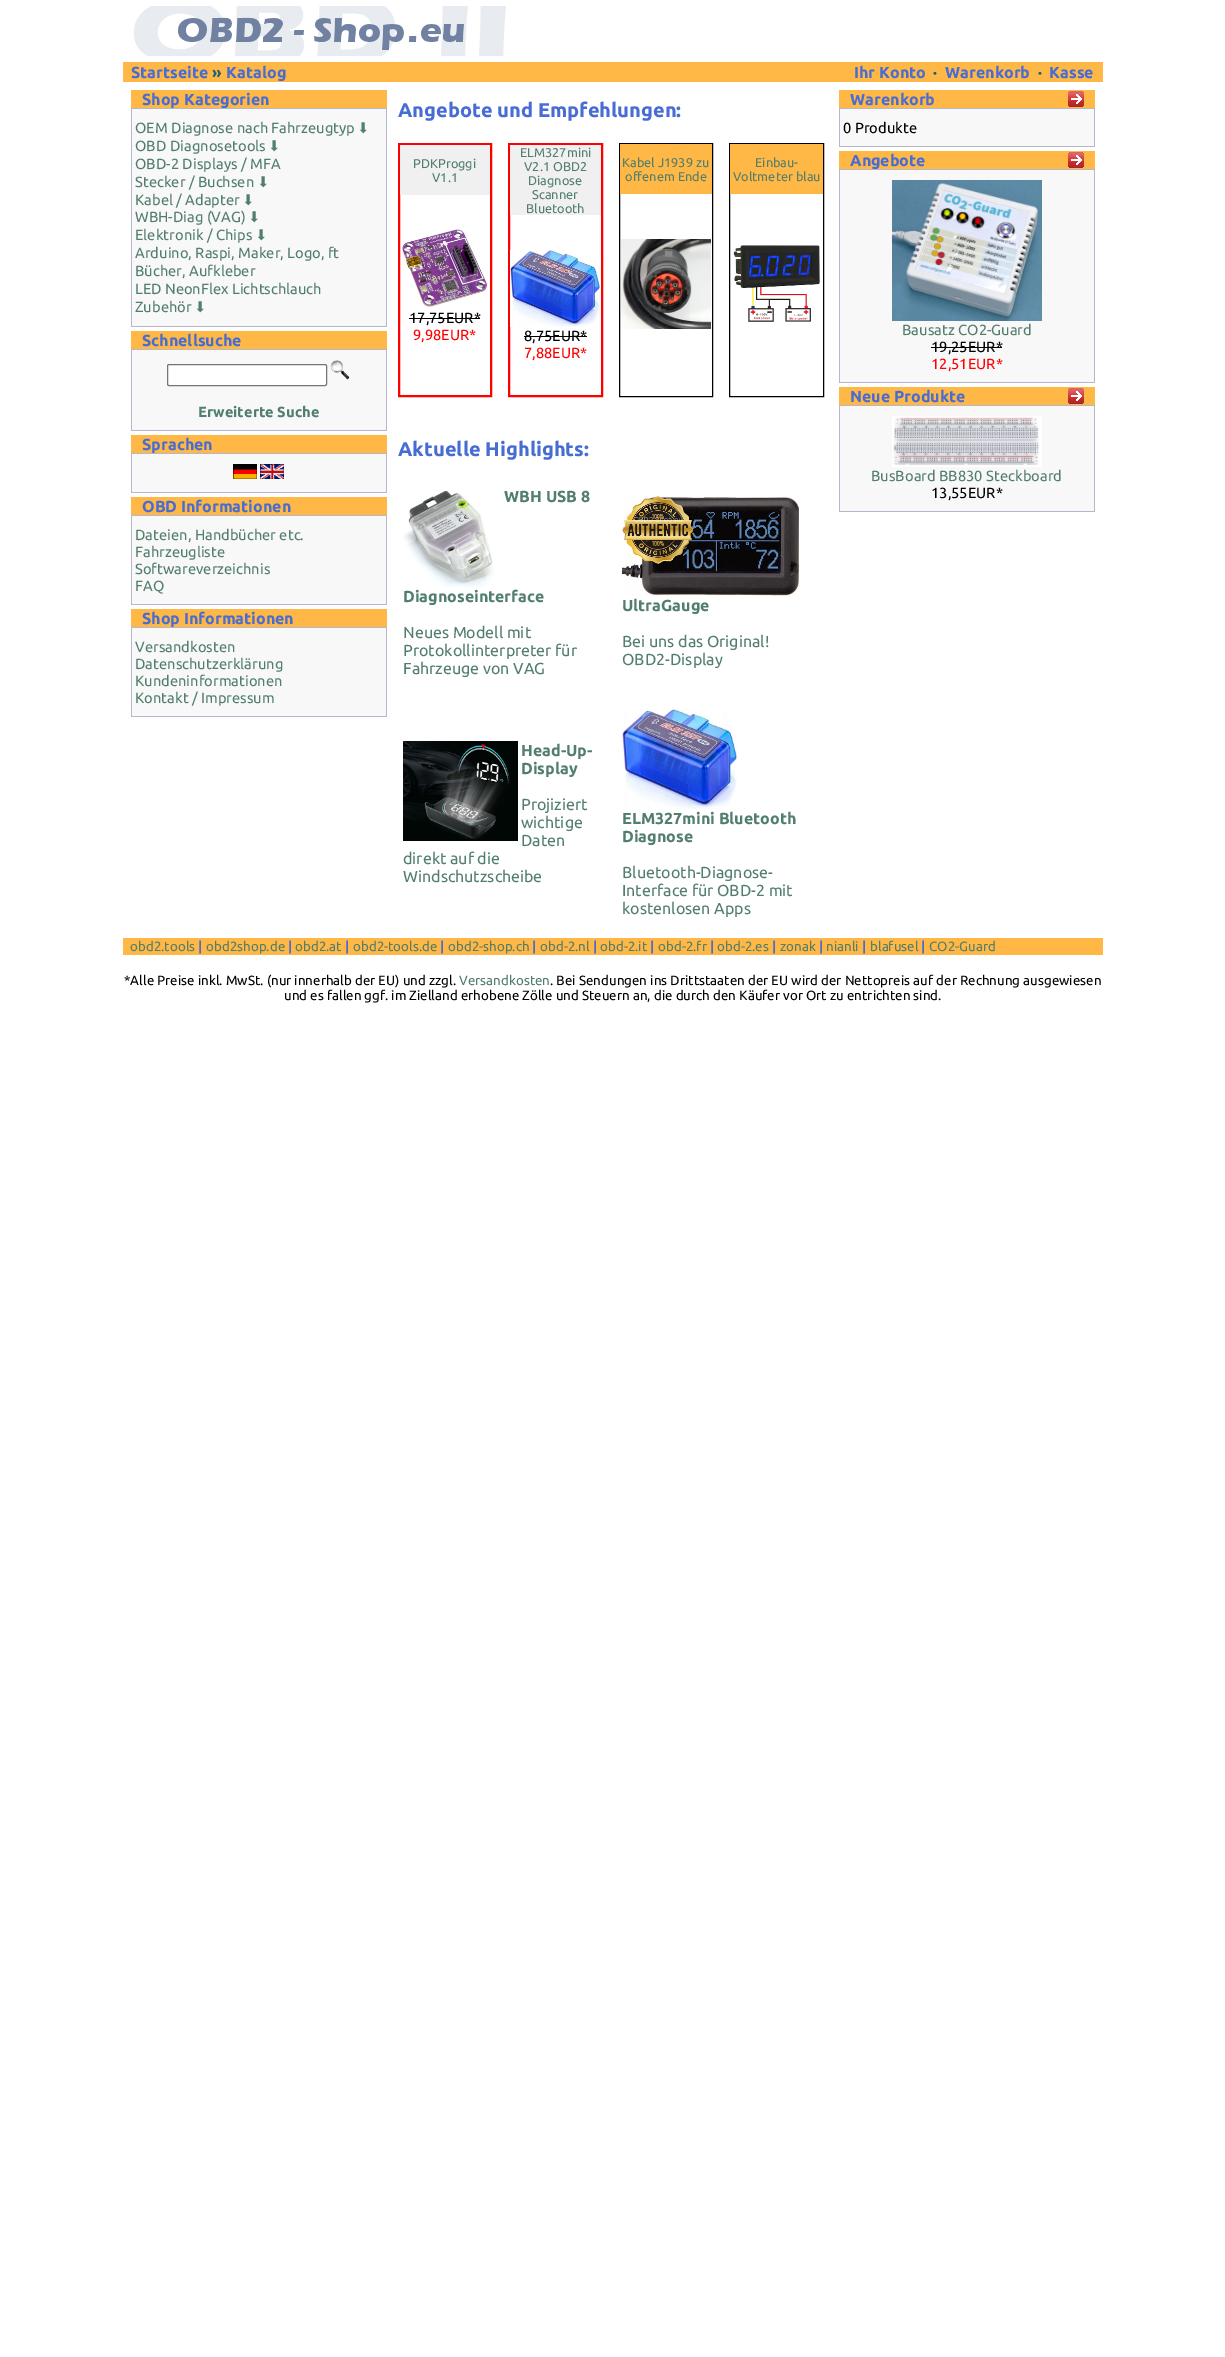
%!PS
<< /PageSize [1225 2357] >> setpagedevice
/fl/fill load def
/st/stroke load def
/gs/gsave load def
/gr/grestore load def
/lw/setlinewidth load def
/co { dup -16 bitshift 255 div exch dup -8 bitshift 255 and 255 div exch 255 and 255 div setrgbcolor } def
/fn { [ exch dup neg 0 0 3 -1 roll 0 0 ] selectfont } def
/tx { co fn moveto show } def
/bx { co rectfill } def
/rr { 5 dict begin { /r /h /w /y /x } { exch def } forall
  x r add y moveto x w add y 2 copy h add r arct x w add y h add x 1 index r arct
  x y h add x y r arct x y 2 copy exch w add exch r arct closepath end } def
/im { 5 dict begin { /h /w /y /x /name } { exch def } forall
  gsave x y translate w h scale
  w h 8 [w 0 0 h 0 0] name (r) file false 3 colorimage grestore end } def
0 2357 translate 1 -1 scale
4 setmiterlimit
0 0 1225 2357 16#FFFFFF bx
(media/1.raw) 133 6 373 50 im
123 62 980 20 16#FFB745 bx
131 90 256 18 16#FFB745 bx
131 108 256 219 16#B6B7CB bx
132 109 254 217 16#F8F8F9 bx
131 331 256 18 16#FFB745 bx
131 349 256 82 16#B6B7CB bx
132 350 254 80 16#F8F8F9 bx
16#FFFFFF co
167.5 364.5 159 21 1.5 rr gs fl gr
16#767676 co
st
(media/2.raw) 330 360 20 20 im
131 435 256 18 16#FFB745 bx
131 453 256 40 16#B6B7CB bx
132 454 254 38 16#F8F8F9 bx
(media/3.raw) 233 464 24 15 im
(media/4.raw) 260 464 24 15 im
131 497 256 18 16#FFB745 bx
131 515 256 90 16#B6B7CB bx
132 516 254 88 16#F8F8F9 bx
131 609 256 18 16#FFB745 bx
131 627 256 90 16#B6B7CB bx
132 628 254 88 16#F8F8F9 bx
16#FF0000 co
2 lw
399 144 92 252 rectstroke
400 145 90 50 16#F0F0F0 bx
(media/5.raw) 402 229 85 78 im
409 318 71 1 16#000000 bx
16#FF0000 co
509 144 93 252 rectstroke
510 145 91 70 16#F0F0F0 bx
(media/6.raw) 510 250 90 77 im
524 336 63 1 16#000000 bx
1 lw
619.5 143.5 93 253 rectstroke
620 144 92 50 16#FFB745 bx
(media/7.raw) 621 239 90 90 im
16#000000 co
729.5 143.5 94 253 rectstroke
730 144 93 50 16#FFB745 bx
(media/8.raw) 733 245 87 77 im
(media/9.raw) 403 490 92 97 im
(media/10.raw) 622 496 178 100 im
(media/11.raw) 403 741 115 100 im
(media/12.raw) 622 709 115 100 im
839 90 256 18 16#FFB745 bx
(media/13.raw) 1068 91 16 16 im
839 108 256 39 16#B6B7CB bx
840 109 254 37 16#F8F8F9 bx
839 151 256 18 16#FFB745 bx
(media/13.raw) 1068 152 16 16 im
839 169 256 214 16#B6B7CB bx
840 170 254 212 16#F8F8F9 bx
(media/14.raw) 892 180 150 141 im
931 347 71 1 16#000000 bx
839 387 256 18 16#FFB745 bx
(media/13.raw) 1068 388 16 16 im
839 405 256 107 16#B6B7CB bx
840 406 254 105 16#F8F8F9 bx
(media/15.raw) 892 416 150 51 im
123 938 980 17 16#FFB745 bx
(Startseite) 131 78 /Ubuntu-Bold 16 16#476DD5 tx
(») 212 78 /Ubuntu-Bold 16 16#226078 tx
(Katalog) 226 78 /Ubuntu-Bold 16 16#476DD5 tx
(Ihr Konto) 854 78 /Ubuntu-Bold 16 16#476DD5 tx
(·) 933 78 /Ubuntu-Bold 16 16#226078 tx
(Warenkorb) 945 78 /Ubuntu-Bold 16 16#476DD5 tx
(·) 1038 78 /Ubuntu-Bold 16 16#226078 tx
(Kasse) 1049 78 /Ubuntu-Bold 16 16#476DD5 tx
(Shop Kategorien) 142 105 /Ubuntu-Bold 16 16#476DD5 tx
(OEM Diagnose nach Fahrzeugtyp) 135 133 /Ubuntu-Regular 14.7 16#527E6E tx
(⬇) 357 133 /DejaVuSans-Regular 14.7 16#527E6E tx
(OBD Diagnosetools) 135 151 /Ubuntu-Regular 14.7 16#527E6E tx
(⬇) 268 151 /DejaVuSans-Regular 14.7 16#527E6E tx
(OBD-2 Displays / MFA) 135 169 /Ubuntu-Regular 14.7 16#527E6E tx
(Stecker / Buchsen) 135 187 /Ubuntu-Regular 14.7 16#527E6E tx
(⬇) 257 187 /DejaVuSans-Regular 14.7 16#527E6E tx
(Kabel / Adapter) 135 205 /Ubuntu-Regular 14.7 16#527E6E tx
(⬇) 242 205 /DejaVuSans-Regular 14.7 16#527E6E tx
(WBH-Diag \(VAG\)) 135 222 /Ubuntu-Regular 14.7 16#527E6E tx
(⬇) 248 222 /DejaVuSans-Regular 14.7 16#527E6E tx
(Elektronik / Chips) 135 240 /Ubuntu-Regular 14.7 16#527E6E tx
(⬇) 255 240 /DejaVuSans-Regular 14.7 16#527E6E tx
(Arduino, Raspi, Maker, Logo, ft) 135 258 /Ubuntu-Regular 14.7 16#527E6E tx
(Bücher, Aufkleber) 135 276 /Ubuntu-Regular 14.7 16#527E6E tx
(LED NeonFlex Lichtschlauch) 135 294 /Ubuntu-Regular 14.7 16#527E6E tx
(Zubehör) 135 312 /Ubuntu-Regular 14.7 16#527E6E tx
(⬇) 194 312 /DejaVuSans-Regular 14.7 16#527E6E tx
(Schnellsuche) 142 346 /Ubuntu-Bold 16 16#476DD5 tx
(Erweiterte Suche) 198 417 /Ubuntu-Bold 14.7 16#527E6E tx
(Sprachen) 142 450 /Ubuntu-Bold 16 16#476DD5 tx
(OBD Informationen) 142 512 /Ubuntu-Bold 16 16#476DD5 tx
(Dateien, Handbücher etc.) 135 540 /Ubuntu-Regular 14.7 16#527E6E tx
(Fahrzeugliste) 135 557 /Ubuntu-Regular 14.7 16#527E6E tx
(Softwareverzeichnis) 135 574 /Ubuntu-Regular 14.7 16#527E6E tx
(FAQ) 135 591 /Ubuntu-Regular 14.7 16#527E6E tx
(Shop Informationen) 142 624 /Ubuntu-Bold 16 16#476DD5 tx
(Versandkosten) 135 652 /Ubuntu-Regular 14.7 16#527E6E tx
(Datenschutzerklärung) 135 669 /Ubuntu-Regular 14.7 16#527E6E tx
(Kundeninformationen) 135 686 /Ubuntu-Regular 14.7 16#527E6E tx
(Kontakt / Impressum) 135 703 /Ubuntu-Regular 14.7 16#527E6E tx
(Angebote und Empfehlungen:) 398 117 /Ubuntu-Bold 20 16#476DD5 tx
(PDKProggi) 413 168 /Ubuntu-Regular 12.75 16#527E6E tx
(V1.1) 432 182 /Ubuntu-Regular 12.75 16#527E6E tx
(17,75EUR*) 409 323 /Ubuntu-Regular 14.7 16#000000 tx
(9,98EUR*) 413 340 /Ubuntu-Regular 14.7 16#FF0000 tx
(ELM327mini) 520 157 /Ubuntu-Regular 12.75 16#527E6E tx
(V2.1 OBD2) 524 171 /Ubuntu-Regular 12.75 16#527E6E tx
(Diagnose) 528 185 /Ubuntu-Regular 12.75 16#527E6E tx
(Scanner) 532 199 /Ubuntu-Regular 12.75 16#527E6E tx
(Bluetooth) 526 213 /Ubuntu-Regular 12.75 16#527E6E tx
(8,75EUR*) 524 341 /Ubuntu-Regular 14.7 16#000000 tx
(7,88EUR*) 524 358 /Ubuntu-Regular 14.7 16#FF0000 tx
(Kabel J1939 zu) 622 167 /Ubuntu-Regular 12.75 16#527E6E tx
(offenem Ende) 625 181 /Ubuntu-Regular 12.75 16#527E6E tx
(Einbau-) 755 167 /Ubuntu-Regular 12.75 16#527E6E tx
(Voltmeter blau) 733 181 /Ubuntu-Regular 12.75 16#527E6E tx
(Aktuelle Highlights:) 398 456 /Ubuntu-Bold 20 16#476DD5 tx
(WBH USB 8) 504 502 /Ubuntu-Bold 16 16#527E6E tx
(Diagnoseinterface) 403 602 /Ubuntu-Bold 16 16#527E6E tx
(Neues Modell mit) 403 638 /Ubuntu-Regular 16 16#527E6E tx
(Protokollinterpreter für) 403 656 /Ubuntu-Regular 16 16#527E6E tx
(Fahrzeuge von VAG) 403 674 /Ubuntu-Regular 16 16#527E6E tx
(UltraGauge) 622 611 /Ubuntu-Bold 16 16#527E6E tx
(Bei uns das Original!) 622 647 /Ubuntu-Regular 16 16#527E6E tx
(OBD2-Display) 622 665 /Ubuntu-Regular 16 16#527E6E tx
(Head-Up-) 521 756 /Ubuntu-Bold 16 16#527E6E tx
(Display) 521 774 /Ubuntu-Bold 16 16#527E6E tx
(Projiziert) 521 810 /Ubuntu-Regular 16 16#527E6E tx
(wichtige) 521 828 /Ubuntu-Regular 16 16#527E6E tx
(Daten) 521 846 /Ubuntu-Regular 16 16#527E6E tx
(direkt auf die) 403 864 /Ubuntu-Regular 16 16#527E6E tx
(Windschutzscheibe) 403 882 /Ubuntu-Regular 16 16#527E6E tx
(ELM327mini Bluetooth) 622 824 /Ubuntu-Bold 16 16#527E6E tx
(Diagnose) 622 842 /Ubuntu-Bold 16 16#527E6E tx
(Bluetooth-Diagnose-) 622 878 /Ubuntu-Regular 16 16#527E6E tx
(Interface für OBD-2 mit) 622 896 /Ubuntu-Regular 16 16#527E6E tx
(kostenlosen Apps) 622 914 /Ubuntu-Regular 16 16#527E6E tx
(Warenkorb) 850 105 /Ubuntu-Bold 16 16#476DD5 tx
(0 Produkte) 843 133 /Ubuntu-Regular 14.7 16#000000 tx
(Angebote) 850 166 /Ubuntu-Bold 16 16#476DD5 tx
(Bausatz CO2-Guard) 902 335 /Ubuntu-Regular 14.7 16#527E6E tx
(19,25EUR*) 931 352 /Ubuntu-Regular 14.7 16#000000 tx
(12,51EUR*) 931 369 /Ubuntu-Regular 14.7 16#FF0000 tx
(Neue Produkte) 850 402 /Ubuntu-Bold 16 16#476DD5 tx
(BusBoard BB830 Steckboard) 871 481 /Ubuntu-Regular 14.7 16#527E6E tx
(13,55EUR*) 931 498 /Ubuntu-Regular 14.7 16#000000 tx
(obd2.tools) 130 951 /Ubuntu-Regular 13.35 16#527E6E tx
(|) 198 951 /Ubuntu-Bold 13.35 16#476DD5 tx
(obd2shop.de) 206 951 /Ubuntu-Regular 13.35 16#527E6E tx
(|) 288 951 /Ubuntu-Bold 13.35 16#476DD5 tx
(obd2.at) 295 951 /Ubuntu-Regular 13.35 16#527E6E tx
(|) 345 951 /Ubuntu-Bold 13.35 16#476DD5 tx
(obd2-tools.de) 353 951 /Ubuntu-Regular 13.35 16#527E6E tx
(|) 440 951 /Ubuntu-Bold 13.35 16#476DD5 tx
(obd2-shop.ch) 448 951 /Ubuntu-Regular 13.35 16#527E6E tx
(|) 532 951 /Ubuntu-Bold 13.35 16#476DD5 tx
(obd-2.nl) 540 951 /Ubuntu-Regular 13.35 16#527E6E tx
(|) 593 951 /Ubuntu-Bold 13.35 16#476DD5 tx
(obd-2.it) 600 951 /Ubuntu-Regular 13.35 16#527E6E tx
(|) 650 951 /Ubuntu-Bold 13.35 16#476DD5 tx
(obd-2.fr) 658 951 /Ubuntu-Regular 13.35 16#527E6E tx
(|) 710 951 /Ubuntu-Bold 13.35 16#476DD5 tx
(obd-2.es) 717 951 /Ubuntu-Regular 13.35 16#527E6E tx
(|) 772 951 /Ubuntu-Bold 13.35 16#476DD5 tx
(zonak) 780 951 /Ubuntu-Regular 13.35 16#527E6E tx
(|) 819 951 /Ubuntu-Bold 13.35 16#476DD5 tx
(nianli) 826 951 /Ubuntu-Regular 13.35 16#527E6E tx
(|) 862 951 /Ubuntu-Bold 13.35 16#476DD5 tx
(blafusel) 870 951 /Ubuntu-Regular 13.35 16#527E6E tx
(|) 921 951 /Ubuntu-Bold 13.35 16#476DD5 tx
(CO2-Guard) 929 951 /Ubuntu-Regular 13.35 16#527E6E tx
(*Alle Preise inkl. MwSt. \(nur innerhalb der EU\) und zzgl.) 124 985 /Ubuntu-Regular 13.35 16#000000 tx
(Versandkosten) 459 985 /Ubuntu-Regular 13.35 16#527E6E tx
(. Bei Sendungen ins Drittstaaten der EU wird der Nettopreis auf der Rechnung ausgewiesen) 550 985 /Ubuntu-Regular 13.35 16#000000 tx
(und es fallen ggf. im Zielland erhobene Zölle und Steuern an, die durch den Käufer vor Ort zu entrichten sind.) 284 1000 /Ubuntu-Regular 13.35 16#000000 tx
showpage
